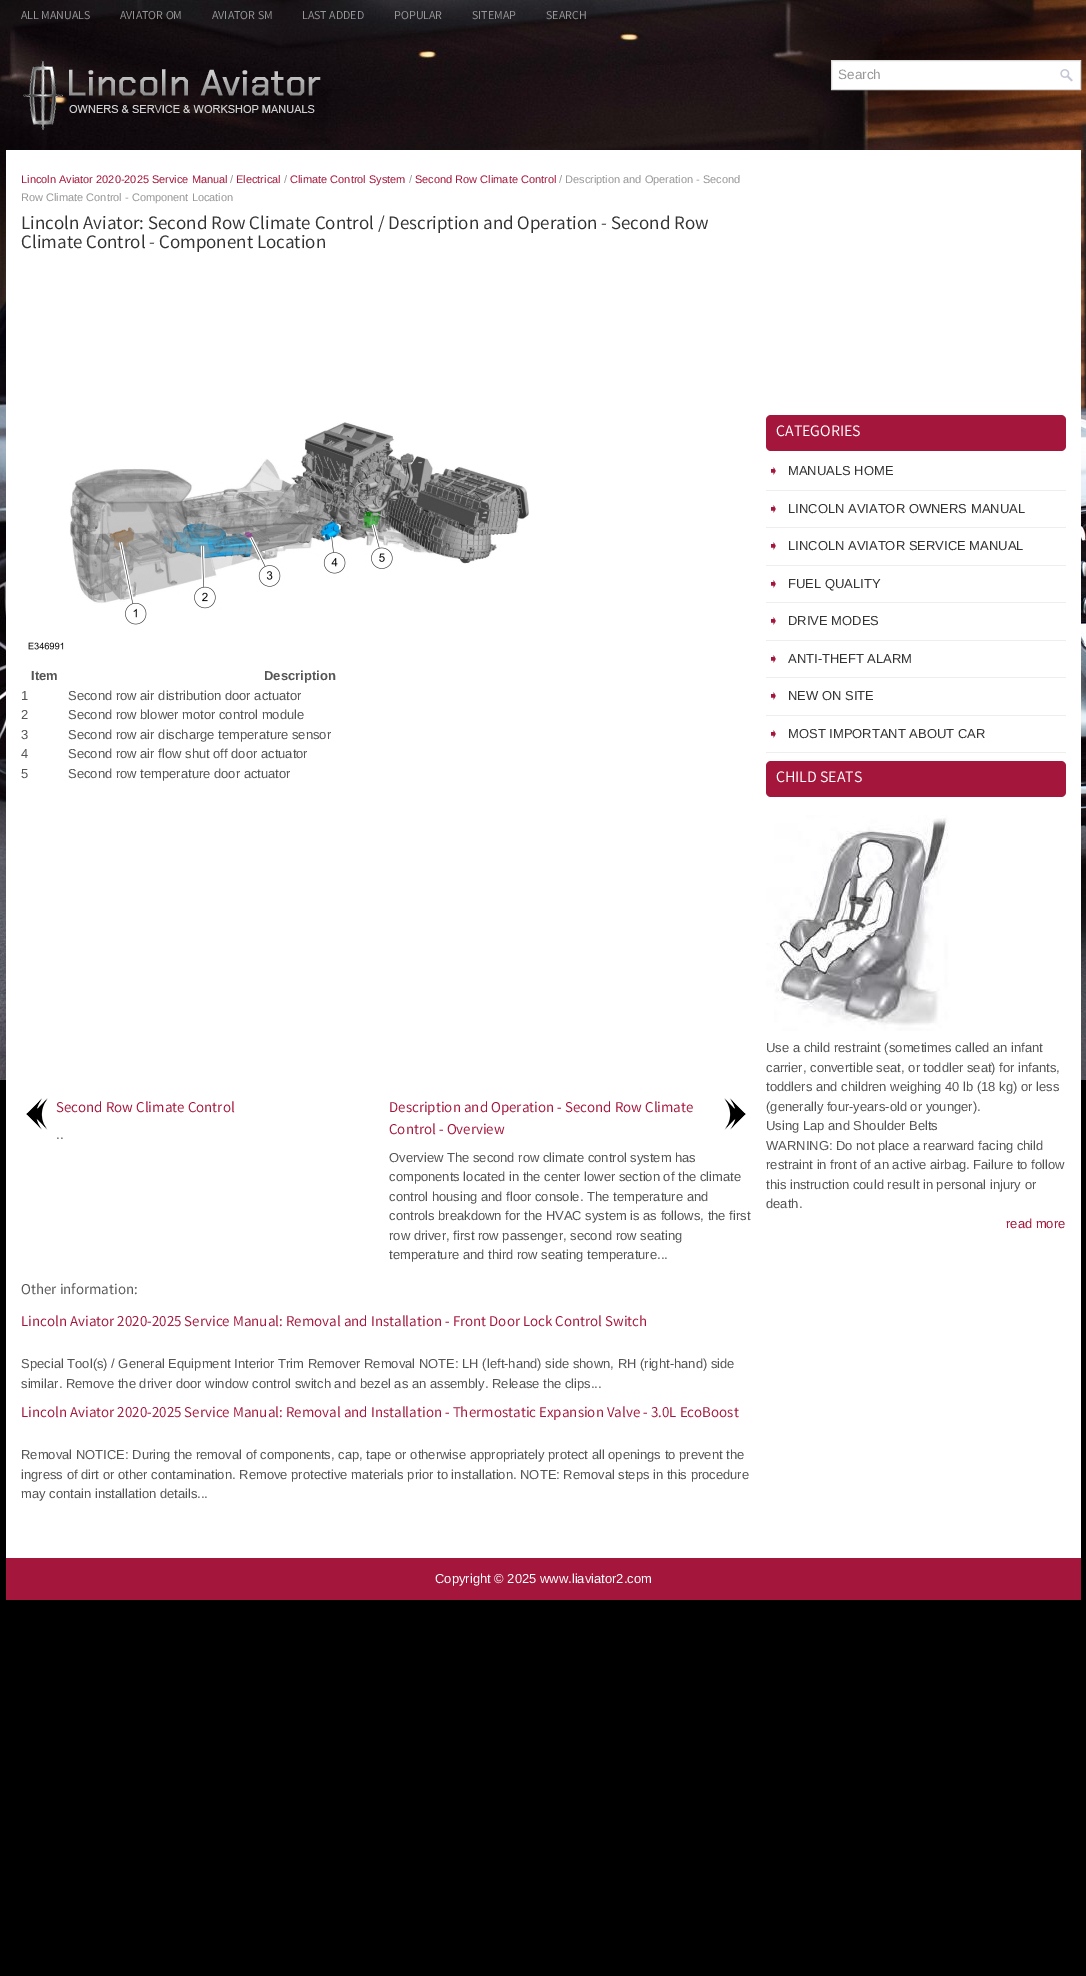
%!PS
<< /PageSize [1086 1976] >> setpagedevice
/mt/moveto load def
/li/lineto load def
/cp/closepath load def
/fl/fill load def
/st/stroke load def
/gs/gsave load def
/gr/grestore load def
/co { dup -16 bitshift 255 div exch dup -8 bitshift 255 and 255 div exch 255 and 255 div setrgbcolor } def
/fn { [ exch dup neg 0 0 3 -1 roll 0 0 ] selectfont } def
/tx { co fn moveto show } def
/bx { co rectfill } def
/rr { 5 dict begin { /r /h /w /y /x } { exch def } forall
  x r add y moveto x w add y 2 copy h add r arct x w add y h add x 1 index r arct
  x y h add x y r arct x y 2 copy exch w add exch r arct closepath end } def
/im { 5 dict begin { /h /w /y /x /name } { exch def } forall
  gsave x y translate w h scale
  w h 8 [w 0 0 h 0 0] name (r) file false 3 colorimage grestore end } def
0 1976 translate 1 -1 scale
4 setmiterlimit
0 0 1086 1976 16#000000 bx
(media/1.raw) 0 0 1086 1080 im
(media/2.raw) 23 60 298 70 im
16#FFFFFF co
831.5 60.5 mt 1080.5 60.5 li 1080.5 89.5 li 831.5 89.5 li cp gs fl gr
16#D8D8D8 co
st
(media/3.raw) 1060 69 13 13 im
6 150 1075 1408 16#FFFFFF bx
(media/4.raw) 28 422 501 228 im
(media/5.raw) 26 1098 22 32 im
(media/6.raw) 724 1098 22 32 im
16#A5163C co
766 415 300 36 5 rr fl
766 490 300 1 16#EEEEEE bx
766 527 300 1 16#EEEEEE bx
766 565 300 1 16#EEEEEE bx
766 602 300 1 16#EEEEEE bx
766 640 300 1 16#EEEEEE bx
766 677 300 1 16#EEEEEE bx
766 715 300 1 16#EEEEEE bx
766 752 300 1 16#EEEEEE bx
16#A5163C co
766 761 300 36 5 rr fl
(media/7.raw) 766 815 184 216 im
6 1558 1075 42 16#A5163C bx
(ALL MANUALS) 21 19 /Varta-Light 12 16#979797 tx
(AVIATOR OM) 120 19 /Varta-Light 12 16#979797 tx
(AVIATOR SM) 212 19 /Varta-Light 12 16#979797 tx
(LAST ADDED) 302 19 /Varta-Light 12 16#979797 tx
(POPULAR) 394 19 /Varta-Light 12 16#979797 tx
(SITEMAP) 472 19 /Varta-Light 12 16#979797 tx
(SEARCH) 546 19 /Varta-Light 12 16#979797 tx
(Search) 838 79 /LiberationSans-Regular 13.5 16#979797 tx
(Lincoln Aviator 2020-2025 Service Manual) 21 183 /LiberationSans-Regular 11 16#A5163C tx
(/) 230 183 /LiberationSans-Regular 11 16#979797 tx
(Electrical) 236 183 /LiberationSans-Regular 11 16#A5163C tx
(/) 284 183 /LiberationSans-Regular 11 16#979797 tx
(Climate Control System) 290 183 /LiberationSans-Regular 11 16#A5163C tx
(/) 409 183 /LiberationSans-Regular 11 16#979797 tx
(Second Row Climate Control) 415 183 /LiberationSans-Regular 11 16#A5163C tx
(/ Description and Operation - Second) 559 183 /LiberationSans-Regular 11 16#979797 tx
(Row Climate Control - Component Location) 21 201 /LiberationSans-Regular 11 16#979797 tx
(Lincoln Aviator: Second Row Climate Control / Description and Operation - Second Row) 21 229 /Varta-Light 19 16#333333 tx
(Climate Control - Component Location) 21 248 /Varta-Light 19 16#333333 tx
(Item) 31 680 /LiberationSans-Bold 13 16#555555 tx
(Description) 264 680 /LiberationSans-Bold 13 16#555555 tx
(1) 21 700 /LiberationSans-Regular 13 16#555555 tx
(Second row air distribution door actuator) 68 700 /LiberationSans-Regular 13 16#555555 tx
(2) 21 719 /LiberationSans-Regular 13 16#555555 tx
(Second row blower motor control module) 68 719 /LiberationSans-Regular 13 16#555555 tx
(3) 21 739 /LiberationSans-Regular 13 16#555555 tx
(Second row air discharge temperature sensor) 68 739 /LiberationSans-Regular 13 16#555555 tx
(4) 21 758 /LiberationSans-Regular 13 16#555555 tx
(Second row air flow shut off door actuator) 68 758 /LiberationSans-Regular 13 16#555555 tx
(5) 21 778 /LiberationSans-Regular 13 16#555555 tx
(Second row temperature door actuator) 68 778 /LiberationSans-Regular 13 16#555555 tx
(Second Row Climate Control) 56 1112 /Varta-Light 15 16#A5163C tx
(..) 56 1139 /LiberationSans-Regular 13 16#555555 tx
(Description and Operation - Second Row Climate) 389 1112 /Varta-Light 15 16#A5163C tx
(Control - Overview) 389 1134 /Varta-Light 15 16#A5163C tx
(Overview The second row climate control system has) 389 1162 /LiberationSans-Regular 13 16#555555 tx
(components located in the center lower section of the climate) 389 1181 /LiberationSans-Regular 13 16#555555 tx
(control housing and floor console. The temperature and) 389 1201 /LiberationSans-Regular 13 16#555555 tx
(controls breakdown for the HVAC system is as follows, the first) 389 1220 /LiberationSans-Regular 13 16#555555 tx
(row driver, first row passenger, second row seating) 389 1240 /LiberationSans-Regular 13 16#555555 tx
(temperature and third row seating temperature...) 389 1259 /LiberationSans-Regular 13 16#555555 tx
(Other information:) 21 1294 /Varta-Light 15 16#555555 tx
(Lincoln Aviator 2020-2025 Service Manual: Removal and Installation - Front Door Lock Control Switch) 21 1326 /Varta-Light 15 16#A5163C tx
(Special Tool\(s\) / General Equipment Interior Trim Remover Removal NOTE: LH \(left-hand\) side shown, RH \(right-hand\) side) 21 1368 /LiberationSans-Regular 13 16#555555 tx
(similar. Remove the driver door window control switch and bezel as an assembly. Release the clips...) 21 1388 /LiberationSans-Regular 13 16#555555 tx
(Lincoln Aviator 2020-2025 Service Manual: Removal and Installation - Thermostatic Expansion Valve - 3.0L EcoBoost) 21 1417 /Varta-Light 15 16#A5163C tx
(Removal NOTICE: During the removal of components, cap, tape or otherwise appropriately protect all openings to prevent the) 21 1459 /LiberationSans-Regular 13 16#555555 tx
(ingress of dirt or other contamination. Remove protective materials prior to installation. NOTE: Removal steps in this procedure) 21 1479 /LiberationSans-Regular 13 16#555555 tx
(may contain installation details...) 21 1498 /LiberationSans-Regular 13 16#555555 tx
(CATEGORIES) 776 436 /Varta-Light 16 16#FFFFFF tx
(➧) 768 475 /DejaVuSans-Regular 13 16#A5163C tx
(MANUALS HOME) 788 475 /LiberationSans-Regular 13 16#333333 tx
(➧) 768 513 /DejaVuSans-Regular 13 16#A5163C tx
(LINCOLN AVIATOR OWNERS MANUAL) 788 513 /LiberationSans-Regular 13 16#333333 tx
(➧) 768 550 /DejaVuSans-Regular 13 16#A5163C tx
(LINCOLN AVIATOR SERVICE MANUAL) 788 550 /LiberationSans-Regular 13 16#333333 tx
(➧) 768 588 /DejaVuSans-Regular 13 16#A5163C tx
(FUEL QUALITY) 788 588 /LiberationSans-Regular 13 16#333333 tx
(➧) 768 625 /DejaVuSans-Regular 13 16#A5163C tx
(DRIVE MODES) 788 625 /LiberationSans-Regular 13 16#333333 tx
(➧) 768 663 /DejaVuSans-Regular 13 16#A5163C tx
(ANTI-THEFT ALARM) 788 663 /LiberationSans-Regular 13 16#333333 tx
(➧) 768 700 /DejaVuSans-Regular 13 16#A5163C tx
(NEW ON SITE) 788 700 /LiberationSans-Regular 13 16#333333 tx
(➧) 768 738 /DejaVuSans-Regular 13 16#A5163C tx
(MOST IMPORTANT ABOUT CAR) 788 738 /LiberationSans-Regular 13 16#333333 tx
(CHILD SEATS) 776 782 /Varta-Light 16 16#FFFFFF tx
(Use a child restraint \(sometimes called an infant) 766 1052 /LiberationSans-Regular 13 16#555555 tx
(carrier, convertible seat, or toddler seat\) for infants,) 766 1072 /LiberationSans-Regular 13 16#555555 tx
(toddlers and children weighing 40 lb \(18 kg\) or less) 766 1091 /LiberationSans-Regular 13 16#555555 tx
(\(generally four-years-old or younger\).) 766 1111 /LiberationSans-Regular 13 16#555555 tx
(Using Lap and Shoulder Belts) 766 1130 /LiberationSans-Regular 13 16#555555 tx
(WARNING: Do not place a rearward facing child) 766 1150 /LiberationSans-Regular 13 16#555555 tx
(restraint in front of an active airbag. Failure to follow) 766 1169 /LiberationSans-Regular 13 16#555555 tx
(this instruction could result in personal injury or) 766 1189 /LiberationSans-Regular 13 16#555555 tx
(death.) 766 1208 /LiberationSans-Regular 13 16#555555 tx
(read more) 1006 1228 /LiberationSans-Regular 13 16#A5163C tx
(Copyright © 2025 www.liaviator2.com) 435 1583 /LiberationSans-Regular 13 16#FFFFFF tx
showpage
